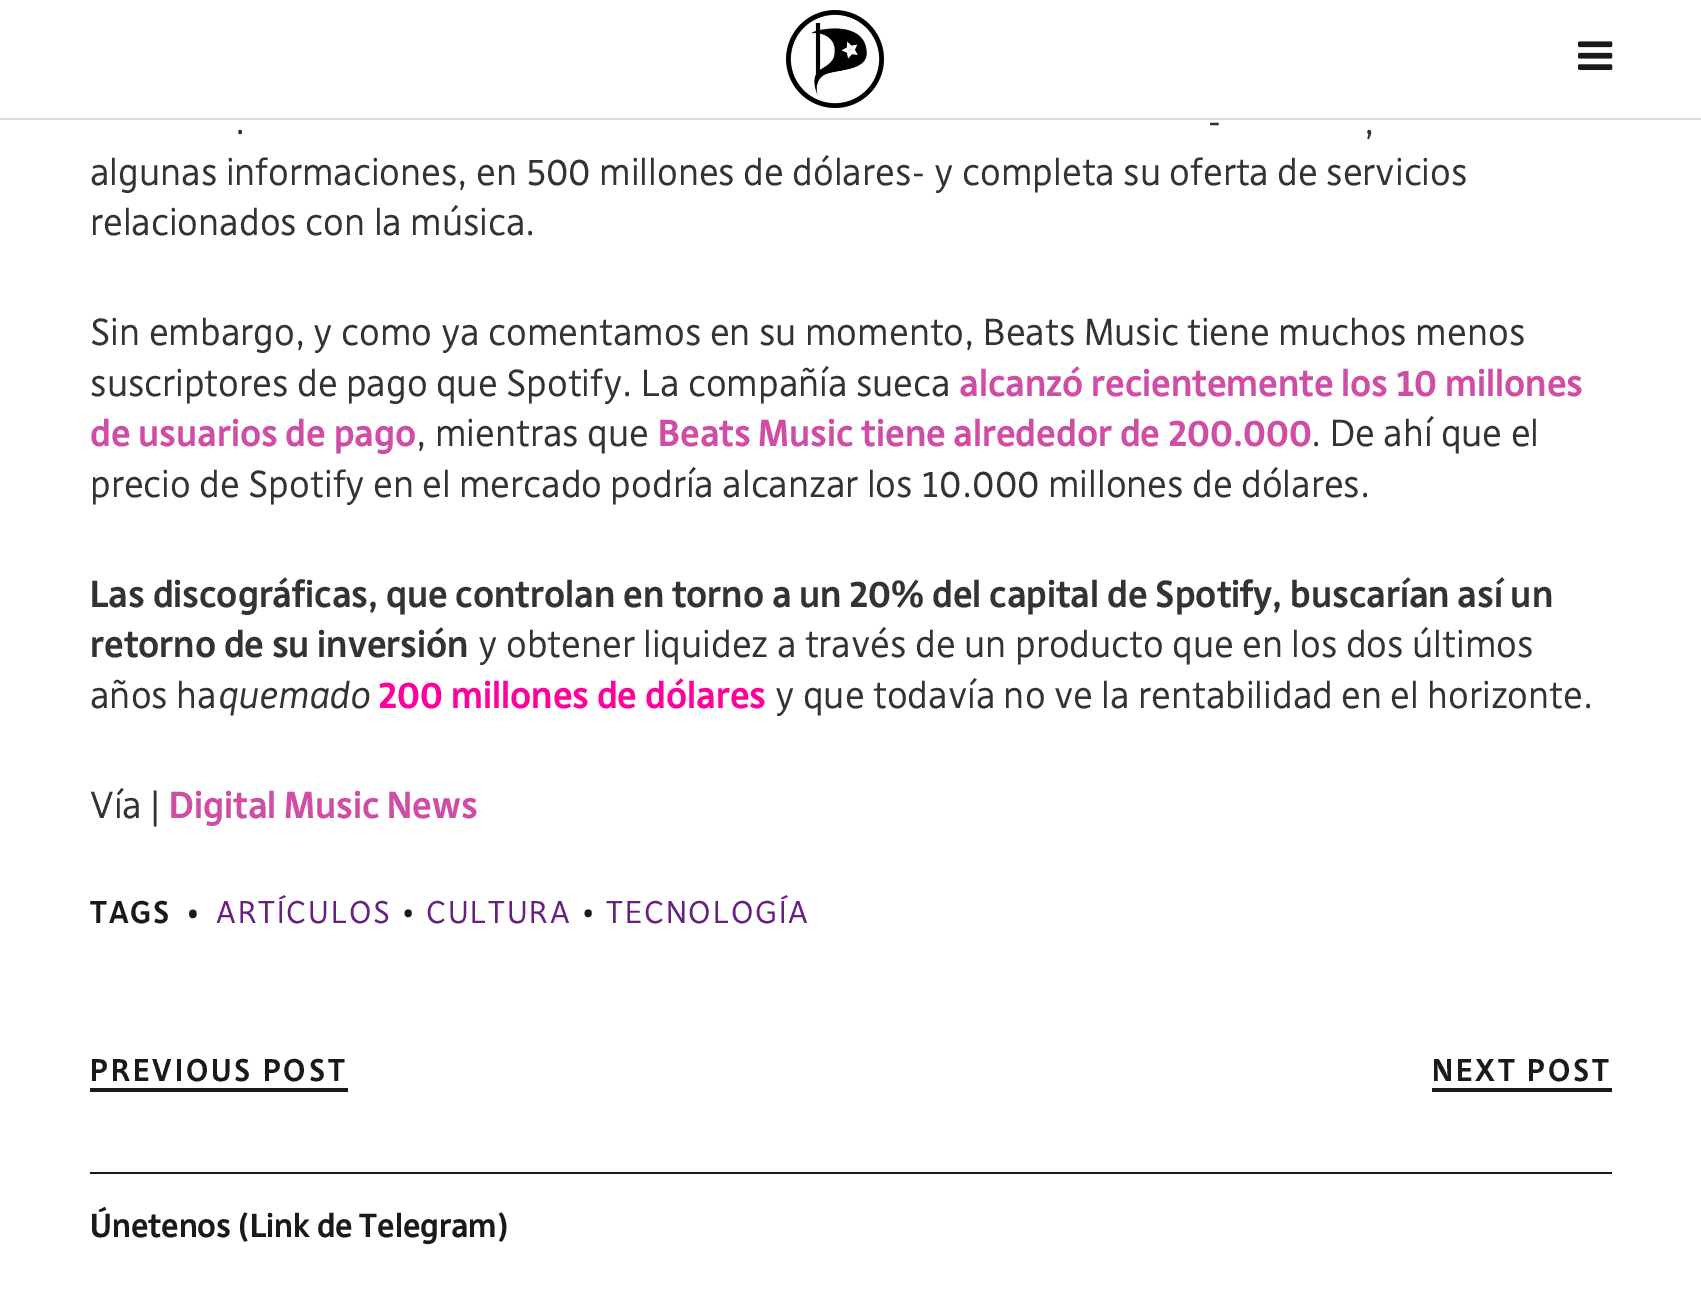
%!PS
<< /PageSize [1701 1313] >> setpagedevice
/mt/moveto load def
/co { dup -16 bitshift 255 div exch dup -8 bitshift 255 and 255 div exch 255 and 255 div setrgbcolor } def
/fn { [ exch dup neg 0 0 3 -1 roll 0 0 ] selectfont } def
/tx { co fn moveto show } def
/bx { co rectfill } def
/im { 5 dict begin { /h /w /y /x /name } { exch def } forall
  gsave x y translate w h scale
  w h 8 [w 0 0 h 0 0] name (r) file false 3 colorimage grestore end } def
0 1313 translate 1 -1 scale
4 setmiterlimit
0 0 1701 1313 16#FFFFFF bx
0 118 1701 2 16#DDDDDD bx
(media/1.raw) 786 10 98 98 im
(media/2.raw) 1578 41 35 29 im
90 1088 258 4 16#1A1A1A bx
1432 1088 180 4 16#1A1A1A bx
90 1172 1522 2 16#1A1A1A bx
(-) 1207 134 /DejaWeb-Regular 36 16#333333 tx
(.) 235 134 /DejaWeb-Regular 36 16#333333 tx
(,) 1364 134 /DejaWeb-Regular 36 16#333333 tx
(algunas informaciones, en 500 millones de dólares- y completa su oferta de servicios) 90 185 /DejaWeb-Regular 36 16#333333 tx
(relacionados con la música.) 90 235 /DejaWeb-Regular 36 16#333333 tx
(Sin embargo, y como ya comentamos en su momento, Beats Music tiene muchos menos) 90 345 /DejaWeb-Regular 36 16#333333 tx
(suscriptores de pago que Spotify. La compañía sueca) 90 396 /DejaWeb-Regular 36 16#333333 tx
(alcanzó recientemente los 10 millones) 959 396 /DejaWeb-Bold 36 16#CF4DA5 tx
(de usuarios de pago) 90 446 /DejaWeb-Bold 36 16#CF4DA5 tx
(, mientras que) 416 446 /DejaWeb-Regular 36 16#333333 tx
(Beats Music tiene alrededor de 200.000) 658 446 /DejaWeb-Bold 36 16#CF4DA5 tx
(. De ahí que el) 1311 446 /DejaWeb-Regular 36 16#333333 tx
(precio de Spotify en el mercado podría alcanzar los 10.000 millones de dólares.) 90 497 /DejaWeb-Regular 36 16#333333 tx
(Las discográficas, que controlan en torno a un 20% del capital de Spotify, buscarían así un) 90 607 /DejaWeb-Bold 36 16#333333 tx
(retorno de su inversión) 90 657 /DejaWeb-Bold 36 16#333333 tx
(y obtener liquidez a través de un producto que en los dos últimos) 478 657 /DejaWeb-Regular 36 16#333333 tx
(años ha) 90 708 /DejaWeb-Regular 36 16#333333 tx
(quemado) 217 708 /DejaWeb-Italic 36 16#333333 tx
(200 millones de dólares) 378 708 /DejaWeb-Bold 36 16#FF009A tx
(y que todavía no ve la rentabilidad en el horizonte.) 775 708 /DejaWeb-Regular 36 16#333333 tx
(Vía |) 90 818 /DejaWeb-Regular 36 16#333333 tx
(Digital Music News) 169 818 /DejaWeb-Bold 36 16#CF4DA5 tx
/DejaWeb-Bold 30 fn
16#1A1A1A co
90 923 mt 2 0 (TAGS) ashow
186 923 mt 2 0 (•) ashow
/DejaWeb-Regular 30 fn
16#672082 co
216 923 mt 2 0 (ARTÍCULOS) ashow
16#1A1A1A co
401 923 mt 2 0 (•) ashow
16#672082 co
426 923 mt 2 0 (CULTURA) ashow
16#1A1A1A co
581 923 mt 2 0 (•) ashow
16#672082 co
606 923 mt 2 0 (TECNOLOGÍA) ashow
/DejaWeb-Bold 30 fn
16#1A1A1A co
90 1081 mt 3 0 (PREVIOUS POST) ashow
1432 1081 mt 3 0 (NEXT POST) ashow
(Únetenos \(Link de Telegram\)) 90 1237 /DejaWeb-Bold 32 16#1A1A1A tx
showpage
